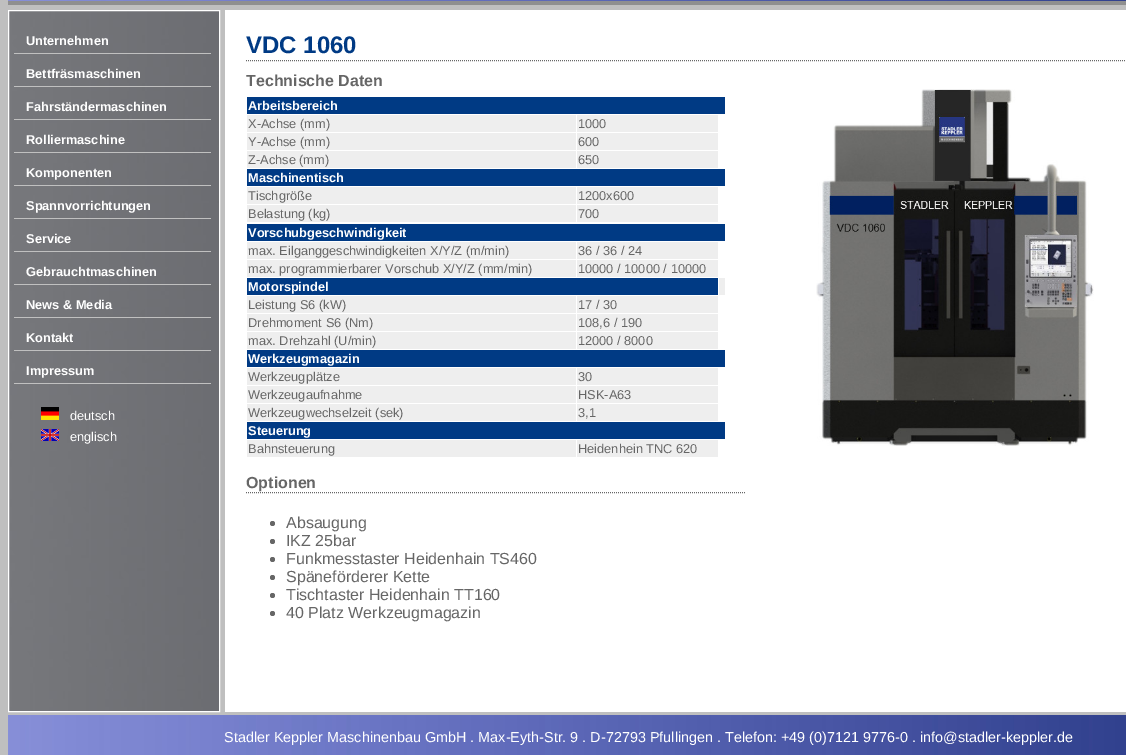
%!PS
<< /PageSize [1126 755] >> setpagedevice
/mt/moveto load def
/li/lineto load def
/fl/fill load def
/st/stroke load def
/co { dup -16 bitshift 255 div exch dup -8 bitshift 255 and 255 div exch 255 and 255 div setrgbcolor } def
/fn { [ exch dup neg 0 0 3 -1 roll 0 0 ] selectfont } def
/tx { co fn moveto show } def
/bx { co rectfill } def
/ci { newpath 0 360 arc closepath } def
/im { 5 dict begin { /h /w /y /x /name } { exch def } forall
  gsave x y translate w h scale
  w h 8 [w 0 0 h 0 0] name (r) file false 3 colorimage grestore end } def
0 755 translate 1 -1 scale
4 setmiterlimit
0 0 1126 755 16#BFBFBF bx
8 1 1118 4 16#8F8F8F bx
(media/1.raw) 8 0 1118 1 im
(media/2.raw) 9 11 210 700 im
16#FFFFFF co
8.5 10.5 211 701 rectstroke
14 53 197 1 16#C0C0C0 bx
14 86 197 1 16#C0C0C0 bx
14 119 197 1 16#C0C0C0 bx
14 152 197 1 16#C0C0C0 bx
14 185 197 1 16#C0C0C0 bx
14 218 197 1 16#C0C0C0 bx
14 251 197 1 16#C0C0C0 bx
14 284 197 1 16#C0C0C0 bx
14 317 197 1 16#C0C0C0 bx
14 350 197 1 16#C0C0C0 bx
14 383 197 1 16#C0C0C0 bx
(media/3.raw) 41 407 18 13 im
(media/4.raw) 41 429 18 12 im
225 10 901 702 16#FFFFFF bx
16#666666 co
[1 1] 0 setdash
246 60.5 mt 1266 60.5 li st
247 97 478 17 16#003A84 bx
247 115 329 17 16#EEEEEE bx
577 115 141 17 16#EEEEEE bx
247 133 329 17 16#EEEEEE bx
577 133 141 17 16#EEEEEE bx
247 151 329 17 16#EEEEEE bx
577 151 141 17 16#EEEEEE bx
247 169 478 17 16#003A84 bx
247 187 329 17 16#EEEEEE bx
577 187 141 17 16#EEEEEE bx
247 205 329 17 16#EEEEEE bx
577 205 141 17 16#EEEEEE bx
247 224 478 17 16#003A84 bx
247 242 329 17 16#EEEEEE bx
577 242 141 17 16#EEEEEE bx
247 260 329 17 16#EEEEEE bx
577 260 141 17 16#EEEEEE bx
247 278 471 17 16#003A84 bx
719 278 6 17 16#EEEEEE bx
247 296 329 17 16#EEEEEE bx
577 296 141 17 16#EEEEEE bx
247 314 329 17 16#EEEEEE bx
577 314 141 17 16#EEEEEE bx
247 332 329 17 16#EEEEEE bx
577 332 141 17 16#EEEEEE bx
247 350 478 17 16#003A84 bx
247 368 329 17 16#EEEEEE bx
577 368 141 17 16#EEEEEE bx
247 386 329 17 16#EEEEEE bx
577 386 141 17 16#EEEEEE bx
247 404 329 17 16#EEEEEE bx
577 404 141 17 16#EEEEEE bx
247 422 478 17 16#003A84 bx
247 440 329 17 16#EEEEEE bx
577 440 141 17 16#EEEEEE bx
16#666666 co
246 492.5 mt 746 492.5 li st
272.5 523.5 2.5 ci fl
272.5 541.5 2.5 ci fl
272.5 559.5 2.5 ci fl
272.5 577.5 2.5 ci fl
272.5 595.5 2.5 ci fl
272.5 613.5 2.5 ci fl
(media/5.raw) 816 89 278 357 im
(media/6.raw) 8 715 1118 40 im
(Unternehmen) 26 45 /LiberationSans-Bold 12.8 16#FFFFFF tx
(Bettfräsmaschinen) 26 78 /LiberationSans-Bold 12.8 16#FFFFFF tx
(Fahrständermaschinen) 26 111 /LiberationSans-Bold 12.8 16#FFFFFF tx
(Rolliermaschine) 26 144 /LiberationSans-Bold 12.8 16#FFFFFF tx
(Komponenten) 26 177 /LiberationSans-Bold 12.8 16#FFFFFF tx
(Spannvorrichtungen) 26 210 /LiberationSans-Bold 12.8 16#FFFFFF tx
(Service) 26 243 /LiberationSans-Bold 12.8 16#FFFFFF tx
(Gebrauchtmaschinen) 26 276 /LiberationSans-Bold 12.8 16#FFFFFF tx
(News & Media) 26 309 /LiberationSans-Bold 12.8 16#FFFFFF tx
(Kontakt) 26 342 /LiberationSans-Bold 12.8 16#FFFFFF tx
(Impressum) 26 375 /LiberationSans-Bold 12.8 16#FFFFFF tx
(deutsch) 70 420 /LiberationSans-Regular 12.8 16#FFFFFF tx
(englisch) 70 441 /LiberationSans-Regular 12.8 16#FFFFFF tx
(VDC 1060) 246 53 /LiberationSans-Bold 24 16#003A84 tx
(Technische Daten) 246 86 /LiberationSans-Bold 16 16#666666 tx
(Arbeitsbereich) 248 110 /LiberationSans-Bold 12.8 16#FFFFFF tx
(X-Achse \(mm\)) 248 128 /LiberationSans-Regular 12.8 16#666666 tx
(1000) 578 128 /LiberationSans-Regular 12.8 16#666666 tx
(Y-Achse \(mm\)) 248 146 /LiberationSans-Regular 12.8 16#666666 tx
(600) 578 146 /LiberationSans-Regular 12.8 16#666666 tx
(Z-Achse \(mm\)) 248 164 /LiberationSans-Regular 12.8 16#666666 tx
(650) 578 164 /LiberationSans-Regular 12.8 16#666666 tx
(Maschinentisch) 248 182 /LiberationSans-Bold 12.8 16#FFFFFF tx
(Tischgröße) 248 200 /LiberationSans-Regular 12.8 16#666666 tx
(1200x600) 578 200 /LiberationSans-Regular 12.8 16#666666 tx
(Belastung \(kg\)) 248 218 /LiberationSans-Regular 12.8 16#666666 tx
(700) 578 218 /LiberationSans-Regular 12.8 16#666666 tx
(Vorschubgeschwindigkeit) 248 237 /LiberationSans-Bold 12.8 16#FFFFFF tx
(max. Eilganggeschwindigkeiten X/Y/Z \(m/min\)) 248 255 /LiberationSans-Regular 12.8 16#666666 tx
(36 / 36 / 24) 578 255 /LiberationSans-Regular 12.8 16#666666 tx
(max. programmierbarer Vorschub X/Y/Z \(mm/min\)) 248 273 /LiberationSans-Regular 12.8 16#666666 tx
(10000 / 10000 / 10000) 578 273 /LiberationSans-Regular 12.8 16#666666 tx
(Motorspindel) 248 291 /LiberationSans-Bold 12.8 16#FFFFFF tx
(Leistung S6 \(kW\)) 248 309 /LiberationSans-Regular 12.8 16#666666 tx
(17 / 30) 578 309 /LiberationSans-Regular 12.8 16#666666 tx
(Drehmoment S6 \(Nm\)) 248 327 /LiberationSans-Regular 12.8 16#666666 tx
(108,6 / 190) 578 327 /LiberationSans-Regular 12.8 16#666666 tx
(max. Drehzahl \(U/min\)) 248 345 /LiberationSans-Regular 12.8 16#666666 tx
(12000 / 8000) 578 345 /LiberationSans-Regular 12.8 16#666666 tx
(Werkzeugmagazin) 248 363 /LiberationSans-Bold 12.8 16#FFFFFF tx
(Werkzeugplätze) 248 381 /LiberationSans-Regular 12.8 16#666666 tx
(30) 578 381 /LiberationSans-Regular 12.8 16#666666 tx
(Werkzeugaufnahme) 248 399 /LiberationSans-Regular 12.8 16#666666 tx
(HSK-A63) 578 399 /LiberationSans-Regular 12.8 16#666666 tx
(Werkzeugwechselzeit \(sek\)) 248 417 /LiberationSans-Regular 12.8 16#666666 tx
(3,1) 578 417 /LiberationSans-Regular 12.8 16#666666 tx
(Steuerung) 248 435 /LiberationSans-Bold 12.8 16#FFFFFF tx
(Bahnsteuerung) 248 453 /LiberationSans-Regular 12.8 16#666666 tx
(Heidenhein TNC 620) 578 453 /LiberationSans-Regular 12.8 16#666666 tx
(Optionen) 246 488 /LiberationSans-Bold 16 16#666666 tx
(Absaugung) 286 528 /LiberationSans-Regular 16 16#666666 tx
(IKZ 25bar) 286 546 /LiberationSans-Regular 16 16#666666 tx
(Funkmesstaster Heidenhain TS460) 286 564 /LiberationSans-Regular 16 16#666666 tx
(Späneförderer Kette) 286 582 /LiberationSans-Regular 16 16#666666 tx
(Tischtaster Heidenhain TT160) 286 600 /LiberationSans-Regular 16 16#666666 tx
(40 Platz Werkzeugmagazin) 286 618 /LiberationSans-Regular 16 16#666666 tx
(Stadler Keppler Maschinenbau GmbH . Max-Eyth-Str. 9 . D-72793 Pfullingen . Telefon: +49 \(0\)7121 9776-0 . info@stadler-keppler.de) 224 742 /LiberationSans-Regular 14.4 16#FFFFFF tx
showpage
